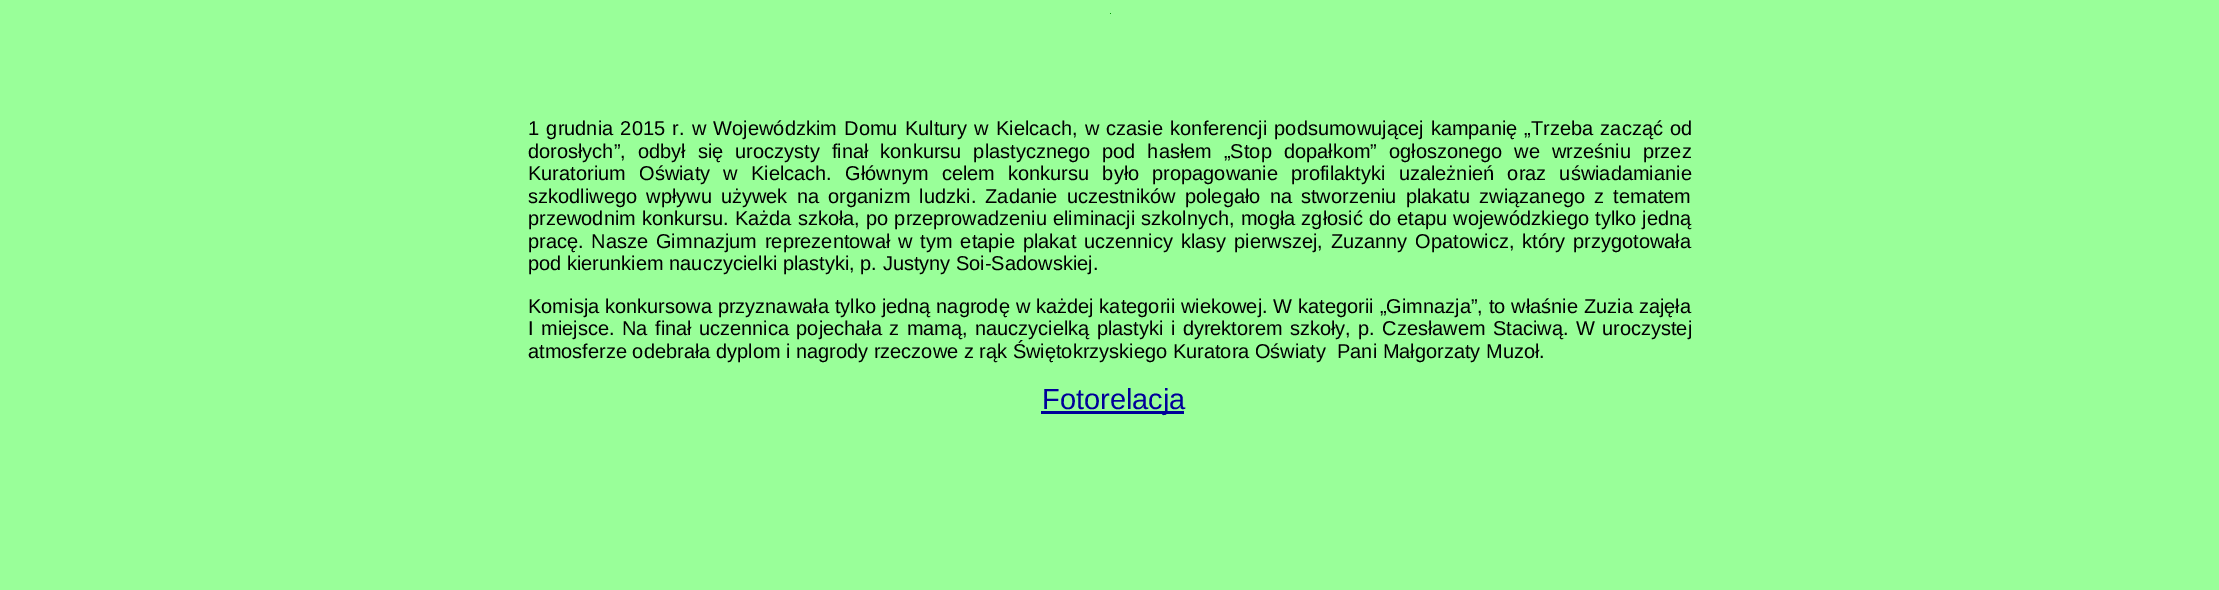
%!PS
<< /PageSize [2219 590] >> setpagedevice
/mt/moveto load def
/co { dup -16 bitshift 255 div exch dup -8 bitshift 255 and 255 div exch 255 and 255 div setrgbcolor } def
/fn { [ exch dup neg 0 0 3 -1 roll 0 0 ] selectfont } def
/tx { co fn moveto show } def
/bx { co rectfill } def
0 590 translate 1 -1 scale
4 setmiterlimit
0 0 2219 590 16#99FF99 bx
1110 13 1 1 16#009900 bx
1041 411 143 3 16#000099 bx
/LiberationSans-Regular 20 fn
16#000000 co
528 135 mt 1.75 0 32 (1 grudnia 2015 r. w Wojewódzkim Domu Kultury w Kielcach, w czasie konferencji podsumowującej kampanię) widthshow
1524 135 mt 2 0 32 („Trzeba zacząć od) widthshow
(dorosłych”,) 528 158 /LiberationSans-Regular 20 16#000000 tx
638 158 mt 6.4 0 32 (odbył się uroczysty finał konkursu plastycznego pod hasłem „Stop dopałkom” ogłoszonego we wrześniu przez) widthshow
528 180 mt 7.6 0 32 (Kuratorium Oświaty w Kielcach. Głównym celem konkursu było propagowanie profilaktyki uzależnień oraz uświadamianie) widthshow
528 203 mt 3.6 0 32 (szkodliwego wpływu używek na organizm ludzki. Zadanie uczestników polegało na stworzeniu plakatu związanego z tematem) widthshow
528 225 mt .6 0 32 (przewodnim konkursu. Każda szkoła, po przeprowadzeniu eliminacji szkolnych, mogła zgłosić do etapu wojewódzkiego tylko jedną) widthshow
528 248 mt 2.25 0 32 (pracę. Nasze Gimnazjum reprezentował w tym etapie plakat uczennicy klasy pierwszej, Zuzanny Opatowicz, który przygotowała) widthshow
(pod kierunkiem nauczycielki plastyki, p. Justyny Soi-Sadowskiej.) 528 270 /LiberationSans-Regular 20 16#000000 tx
528 313 mt .3 0 32 (Komisja konkursowa przyznawała tylko jedną nagrodę w każdej kategorii wiekowej. W kategorii „Gimnazja”, to właśnie Zuzia zajęła) widthshow
528 335 mt 2 0 32 (I miejsce. Na finał) widthshow
699 335 mt 1.75 0 32 (uczennica pojechała z mamą, nauczycielką plastyki i dyrektorem szkoły, p. Czesławem Staciwą. W uroczystej) widthshow
(atmosferze odebrała dyplom i nagrody rzeczowe z rąk Świętokrzyskiego Kuratora Oświaty) 528 358 /LiberationSans-Regular 20 16#000000 tx
(Pani Małgorzaty Muzoł.) 1337 358 /LiberationSans-Regular 20 16#000000 tx
(Fotorelacja) 1042 409 /LiberationSans-Regular 29 16#000099 tx
showpage
